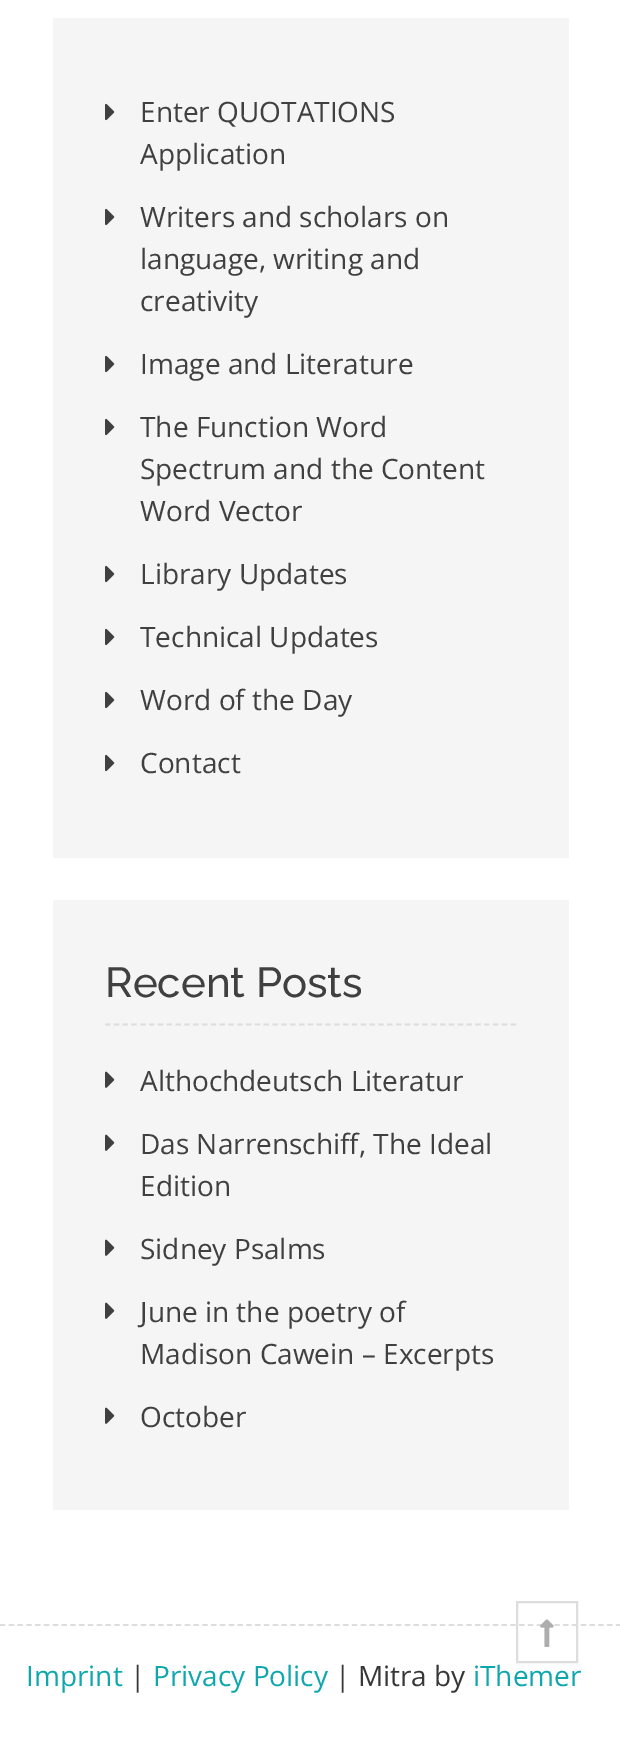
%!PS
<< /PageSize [620 1749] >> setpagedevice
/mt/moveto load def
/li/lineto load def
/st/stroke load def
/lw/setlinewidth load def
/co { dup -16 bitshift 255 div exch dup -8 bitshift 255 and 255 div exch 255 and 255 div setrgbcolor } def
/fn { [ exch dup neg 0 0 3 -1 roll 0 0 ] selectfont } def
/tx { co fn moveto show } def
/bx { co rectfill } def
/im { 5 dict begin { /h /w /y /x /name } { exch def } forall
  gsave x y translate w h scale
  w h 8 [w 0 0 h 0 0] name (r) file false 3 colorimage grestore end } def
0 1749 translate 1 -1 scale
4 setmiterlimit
0 0 620 1749 16#FFFFFF bx
53 18 516 840 16#F5F5F5 bx
(media/1.raw) 105 103 10 18 im
(media/1.raw) 105 208 10 18 im
(media/1.raw) 105 355 10 18 im
(media/1.raw) 105 418 10 18 im
(media/1.raw) 105 565 10 18 im
(media/1.raw) 105 628 10 18 im
(media/1.raw) 105 691 10 18 im
(media/1.raw) 105 754 10 18 im
53 900 516 610 16#F5F5F5 bx
16#DDDDDD co
1.8 lw
[5.25 3.57] 0 setdash
105 1024.5 mt 516 1024.5 li st
(media/2.raw) 105 1071 10 17 im
(media/2.raw) 105 1134 10 17 im
(media/2.raw) 105 1239 10 17 im
(media/2.raw) 105 1302 10 17 im
(media/2.raw) 105 1407 10 17 im
[5.25 3.55] 0 setdash
0 1625 mt 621 1625 li st
2 lw
[] 0 setdash
517 1602 60 60 rectstroke
(media/3.raw) 540 1619 14 28 im
(Enter QUOTATIONS) 140 122 /OpenSans-Regular 28 16#404040 tx
(Application) 140 164 /OpenSans-Regular 28 16#404040 tx
(Writers and scholars on) 140 227 /OpenSans-Regular 28 16#404040 tx
(language, writing and) 140 269 /OpenSans-Regular 28 16#404040 tx
(creativity) 140 311 /OpenSans-Regular 28 16#404040 tx
(Image and Literature) 140 374 /OpenSans-Regular 28 16#404040 tx
(The Function Word) 140 437 /OpenSans-Regular 28 16#404040 tx
(Spectrum and the Content) 140 479 /OpenSans-Regular 28 16#404040 tx
(Word Vector) 140 521 /OpenSans-Regular 28 16#404040 tx
(Library Updates) 140 584 /OpenSans-Regular 28 16#404040 tx
(Technical Updates) 140 647 /OpenSans-Regular 28 16#404040 tx
(Word of the Day) 140 710 /OpenSans-Regular 28 16#404040 tx
(Contact) 140 773 /OpenSans-Regular 28 16#404040 tx
(Recent Posts) 105 997 /Raleway-Medium 42 16#404040 tx
(Althochdeutsch Literatur) 140 1091 /OpenSans-Regular 28 16#404040 tx
(Das Narrenschiff, The Ideal) 140 1154 /OpenSans-Regular 28 16#404040 tx
(Edition) 140 1196 /OpenSans-Regular 28 16#404040 tx
(Sidney Psalms) 140 1259 /OpenSans-Regular 28 16#404040 tx
(June in the poetry of) 140 1322 /OpenSans-Regular 28 16#404040 tx
(Madison Cawein – Excerpts) 140 1364 /OpenSans-Regular 28 16#404040 tx
(October) 140 1427 /OpenSans-Regular 28 16#404040 tx
(Imprint) 26 1686 /OpenSans-Regular 28 16#0EA7AE tx
(|) 130 1686 /OpenSans-Regular 28 16#383737 tx
(Privacy Policy) 153 1686 /OpenSans-Regular 28 16#0EA7AE tx
(| Mitra by) 335 1686 /OpenSans-Regular 28 16#383737 tx
(iThemer) 473 1686 /OpenSans-Regular 28 16#0EA7AE tx
showpage
